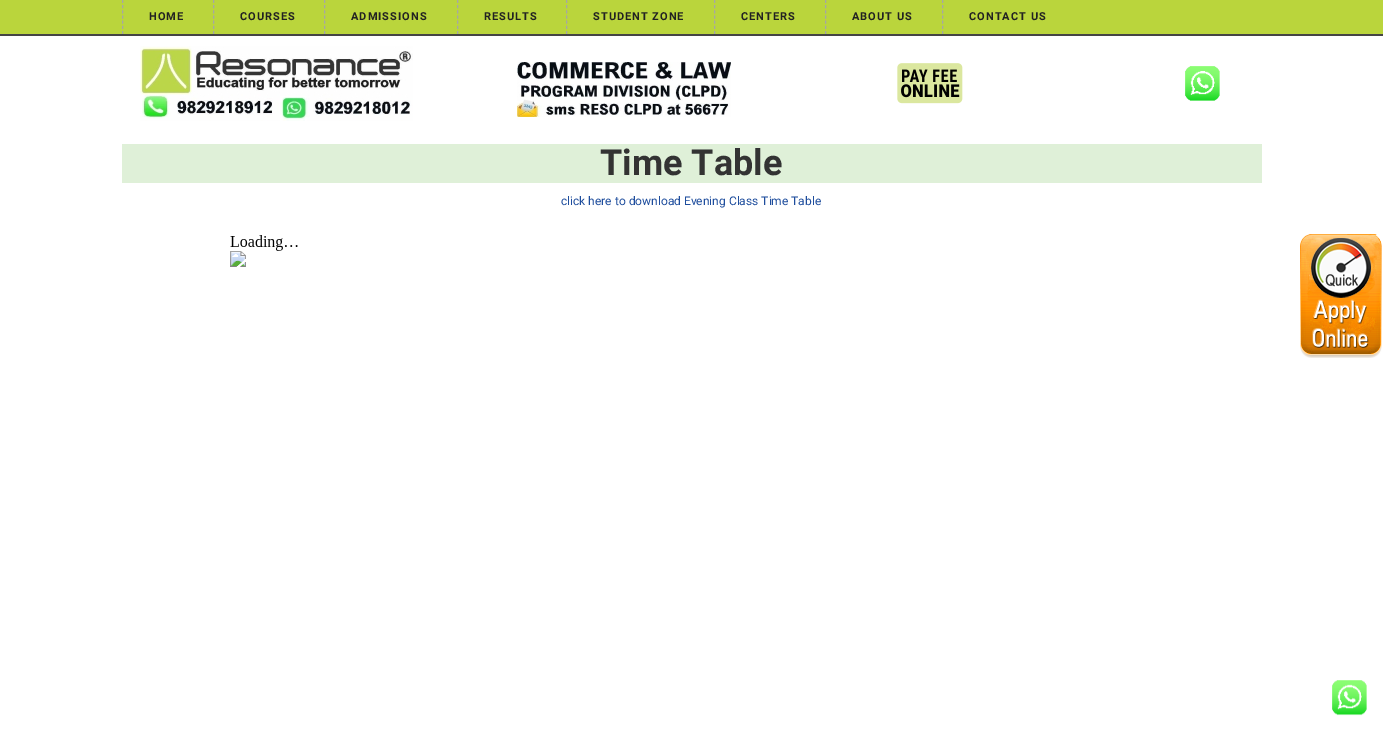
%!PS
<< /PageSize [1383 752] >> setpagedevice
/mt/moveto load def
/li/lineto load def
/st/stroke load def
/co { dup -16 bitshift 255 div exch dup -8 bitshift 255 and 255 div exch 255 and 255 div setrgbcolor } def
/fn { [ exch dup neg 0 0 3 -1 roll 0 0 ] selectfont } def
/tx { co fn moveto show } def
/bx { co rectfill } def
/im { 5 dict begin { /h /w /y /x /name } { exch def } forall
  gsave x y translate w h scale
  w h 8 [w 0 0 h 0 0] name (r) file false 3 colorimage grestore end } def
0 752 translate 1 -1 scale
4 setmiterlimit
0 0 1383 752 16#FFFFFF bx
0 0 1383 34 16#BAD53C bx
0 34 1383 2 16#444444 bx
16#A6A6A6 co
[3 2.17] 0 setdash
122.5 0 mt 122.5 34 li st
213.5 0 mt 213.5 34 li st
324.5 0 mt 324.5 34 li st
457.5 0 mt 457.5 34 li st
566.5 0 mt 566.5 34 li st
714.5 0 mt 714.5 34 li st
825.5 0 mt 825.5 34 li st
942.5 0 mt 942.5 34 li st
(media/1.raw) 140 46 273 75 im
(media/2.raw) 517 62 214 55 im
(media/3.raw) 897 63 66 41 im
(media/4.raw) 1185 66 35 35 im
122 144 1140 39 16#DFF0D8 bx
(media/5.raw) 230 235 68 32 im
(media/6.raw) 1300 234 82 124 im
(media/7.raw) 1332 680 35 36 im
/Roboto-Bold 11 fn
16#222222 co
149 20 mt 1 0 (HOME) ashow
240 20 mt 1 0 (COURSES) ashow
351 20 mt 1 0 (ADMISSIONS) ashow
484 20 mt 1 0 (RESULTS) ashow
593 20 mt 1 0 (STUDENT ZONE) ashow
741 20 mt 1 0 (CENTERS) ashow
852 20 mt 1 0 (ABOUT US) ashow
969 20 mt 1 0 (CONTACT US) ashow
(Time Table) 600 175 /Roboto-Bold 36 16#333333 tx
(click here to download Evening Class Time Table) 561 205 /Roboto-Regular 12 16#1E4D9D tx
showpage
